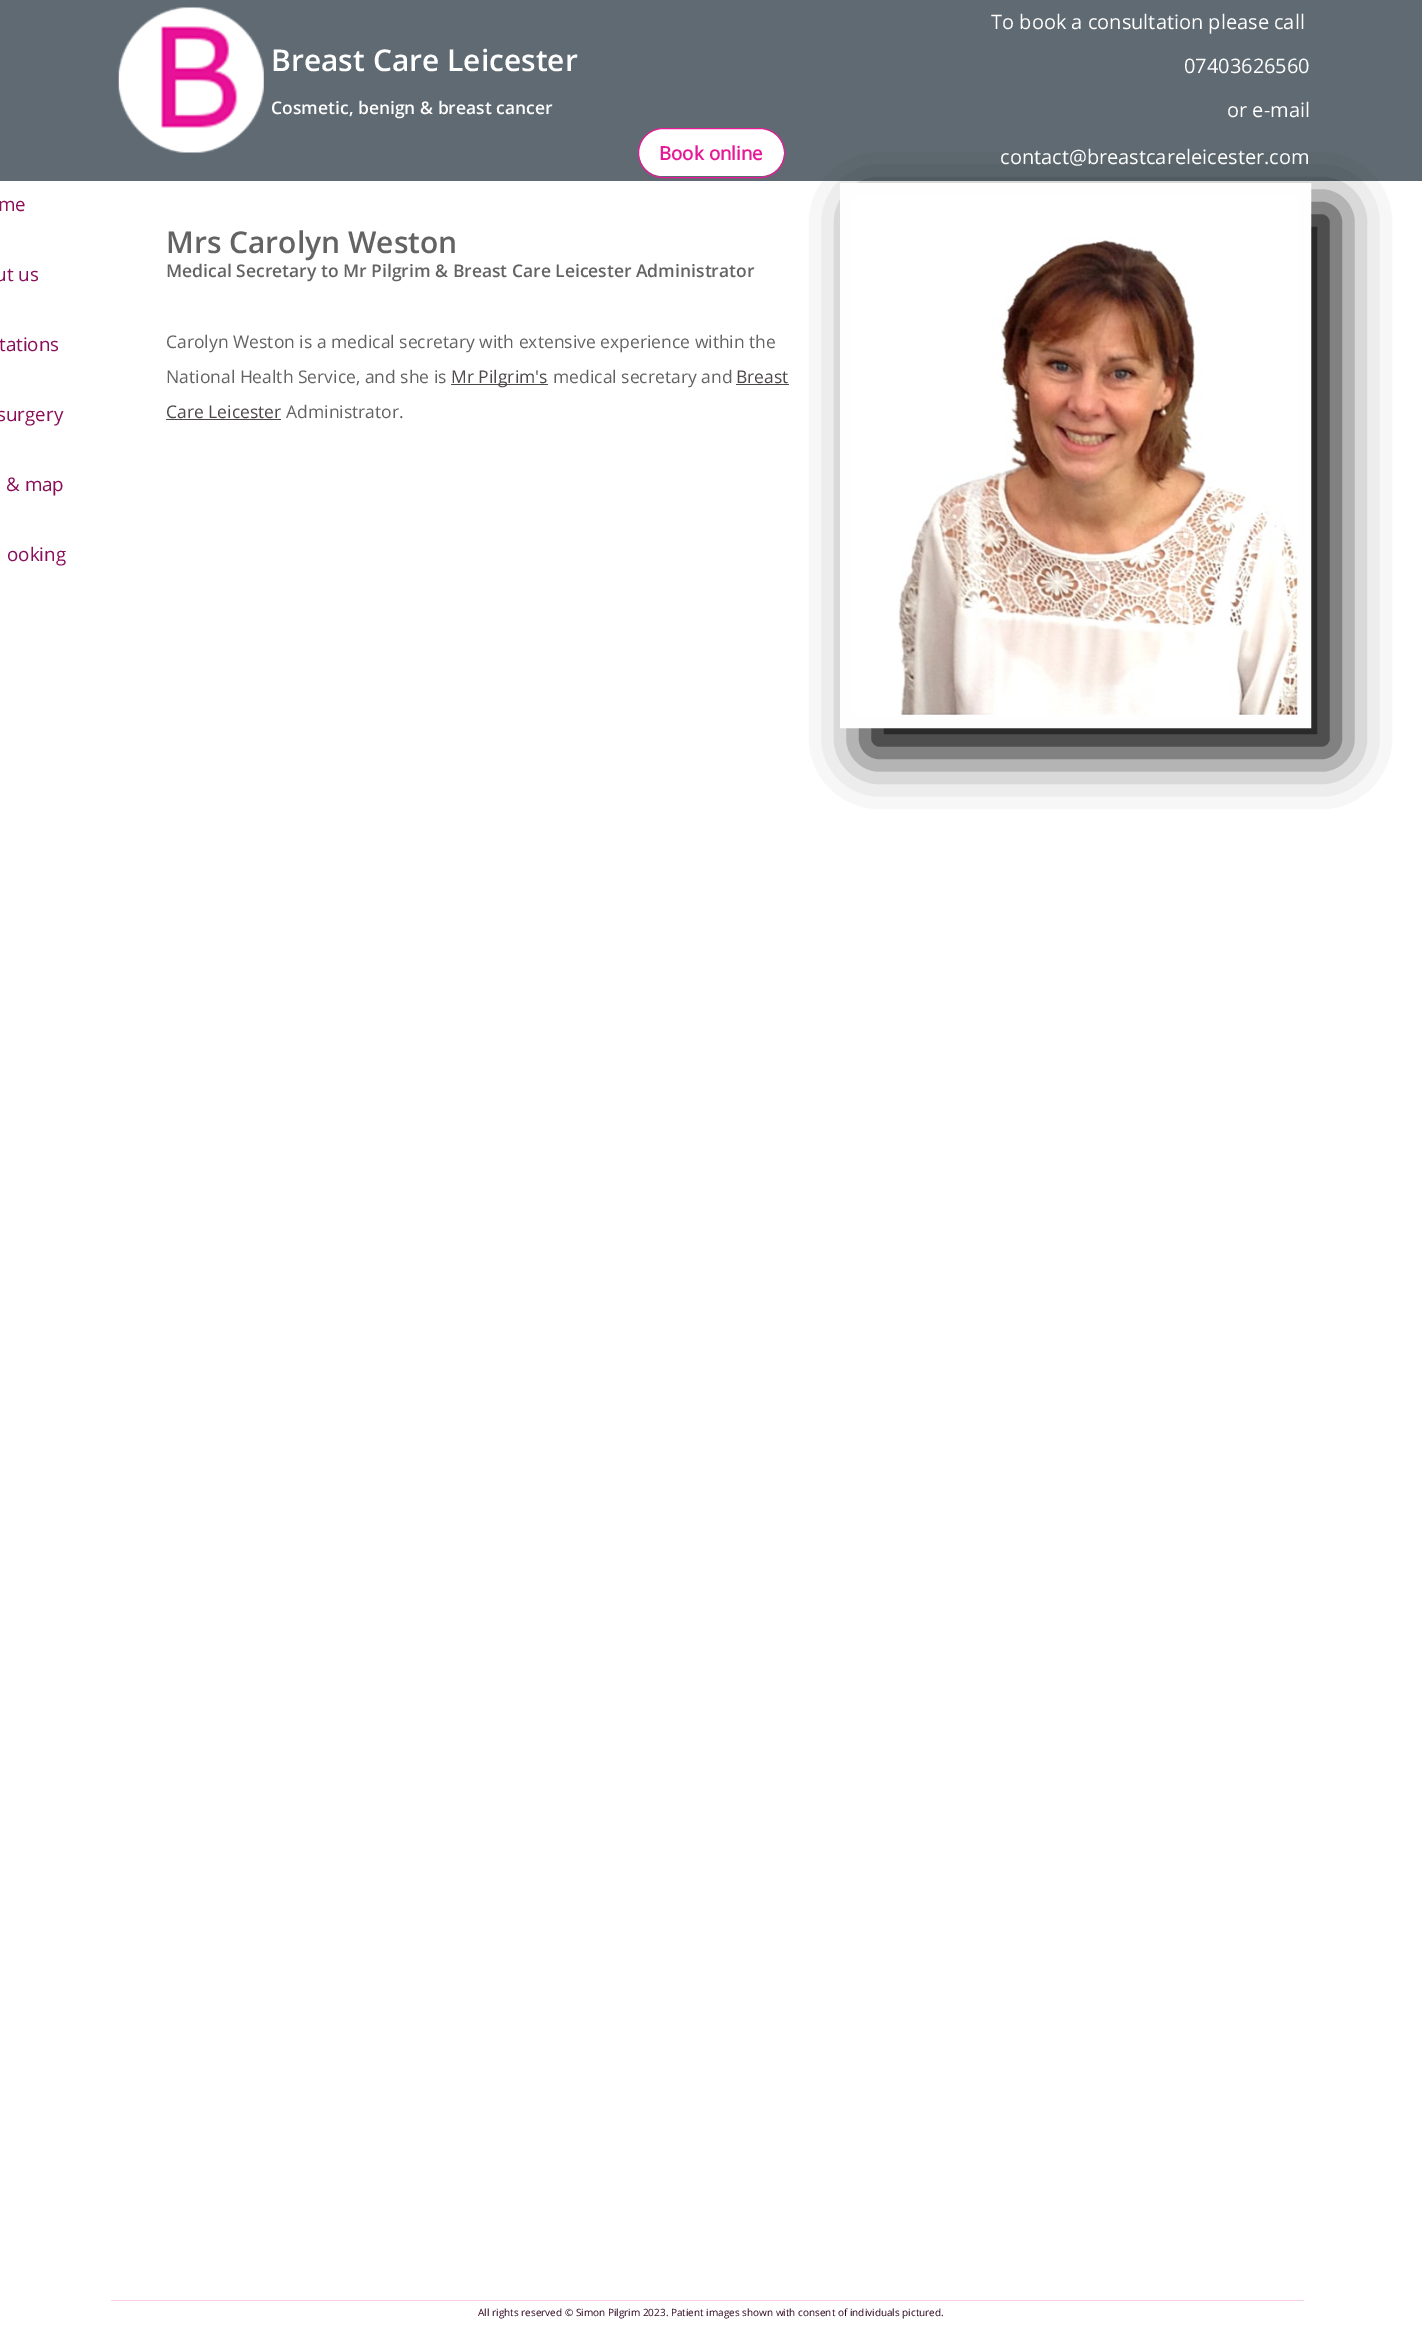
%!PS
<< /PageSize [1422 2328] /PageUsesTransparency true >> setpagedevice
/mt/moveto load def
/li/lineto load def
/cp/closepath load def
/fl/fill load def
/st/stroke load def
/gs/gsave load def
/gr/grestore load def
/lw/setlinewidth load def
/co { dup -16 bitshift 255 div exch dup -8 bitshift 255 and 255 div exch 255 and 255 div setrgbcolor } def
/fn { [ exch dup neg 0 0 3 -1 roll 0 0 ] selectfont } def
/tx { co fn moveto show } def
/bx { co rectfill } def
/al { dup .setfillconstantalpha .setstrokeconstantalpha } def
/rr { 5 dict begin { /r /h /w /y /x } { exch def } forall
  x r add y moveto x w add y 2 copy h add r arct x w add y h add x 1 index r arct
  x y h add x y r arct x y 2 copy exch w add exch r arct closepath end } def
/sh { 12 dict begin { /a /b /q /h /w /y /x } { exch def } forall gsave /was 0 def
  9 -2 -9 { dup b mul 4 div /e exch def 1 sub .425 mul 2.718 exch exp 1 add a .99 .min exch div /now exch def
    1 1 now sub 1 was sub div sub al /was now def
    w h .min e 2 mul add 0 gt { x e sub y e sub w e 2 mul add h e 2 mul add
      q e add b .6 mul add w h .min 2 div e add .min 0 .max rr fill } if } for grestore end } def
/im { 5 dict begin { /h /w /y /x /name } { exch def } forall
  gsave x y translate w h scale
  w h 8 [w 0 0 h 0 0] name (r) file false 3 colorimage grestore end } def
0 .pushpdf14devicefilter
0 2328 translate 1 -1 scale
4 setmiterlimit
0 0 1422 2328 16#FFFFFF bx
0 0 1422 181 16#5F6A72 bx
(media/1.raw) 118 7 146 146 im
16#FFFFFF co
639 129 145 47 23.5 rr fl
16#E61996 co
638.5 128.5 146 49 24.5 rr st
(media/2.raw) 898 237 400 478 im
gs
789 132 mt 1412 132 li 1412 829 li 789 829 li cp 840 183 mt 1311 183 li 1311 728 li 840 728 li cp eoclip newpath
16#000000 co
865 208 471 545 0 25 1 sh
gr
16#FEFEFE co
13 lw
846.5 189.5 458 532 rectstroke
451 384 97 1 16#4D4949 bx
736 384 53 1 16#4D4949 bx
166 419 115 1 16#4D4949 bx
111 2300 1193 1 16#FAD1EA bx
(Breast Care Leicester) 271 71 /OpenSans-SemiBold 30 16#FFFFFF tx
(Cosmetic, benign & breast cancer) 271 114 /OpenSans-SemiBold 17.5 16#FFFFFF tx
(To book a consultation please call) 991 29 /OpenSans-Regular 20 16#FFFFFF tx
(07403626560) 1184 73 /OpenSans-Regular 20 16#FFFFFF tx
(or e-mail) 1227 117 /OpenSans-Regular 20 16#FFFFFF tx
(contact@breastcareleicester.com) 1000 164 /OpenSans-Regular 20 16#FFFFFF tx
(Book online) 659 160 /OpenSans-Bold 18.75 16#E61996 tx
(me) -2 211 /OpenSans-Regular 18.75 16#8A0F5A tx
(ut us) -5 281 /OpenSans-Regular 18.75 16#8A0F5A tx
(tations) -1 351 /OpenSans-Regular 18.75 16#8A0F5A tx
(surgery) -3 421 /OpenSans-Regular 18.75 16#8A0F5A tx
(& map) 6 491 /OpenSans-Regular 18.75 16#8A0F5A tx
(ooking) 7 561 /OpenSans-Regular 18.75 16#8A0F5A tx
(Mrs Carolyn Weston) 166 253 /OpenSans-SemiBold 30 16#636363 tx
(Medical Secretary to Mr Pilgrim & Breast Care Leicester Administrator) 166 277 /OpenSans-SemiBold 17.5 16#636363 tx
(Carolyn Weston is a medical secretary with extensive experience within the) 166 348 /OpenSans-Regular 17.5 16#636363 tx
(National Health Service, and she is) 166 383 /OpenSans-Regular 17.5 16#636363 tx
(Mr Pilgrim's) 451 383 /OpenSans-Regular 17.5 16#4D4949 tx
(medical secretary and) 553 383 /OpenSans-Regular 17.5 16#636363 tx
(Breast) 736 383 /OpenSans-Regular 17.5 16#4D4949 tx
(Care Leicester) 166 418 /OpenSans-Regular 17.5 16#4D4949 tx
(Administrator.) 286 418 /OpenSans-Regular 17.5 16#636363 tx
(All rights reserved © Simon Pilgrim 2023. Patient images shown with consent of individuals pictured.) 478 2316 /OpenSans-Regular 10 16#2E051E tx
.poppdf14devicefilter showpage
